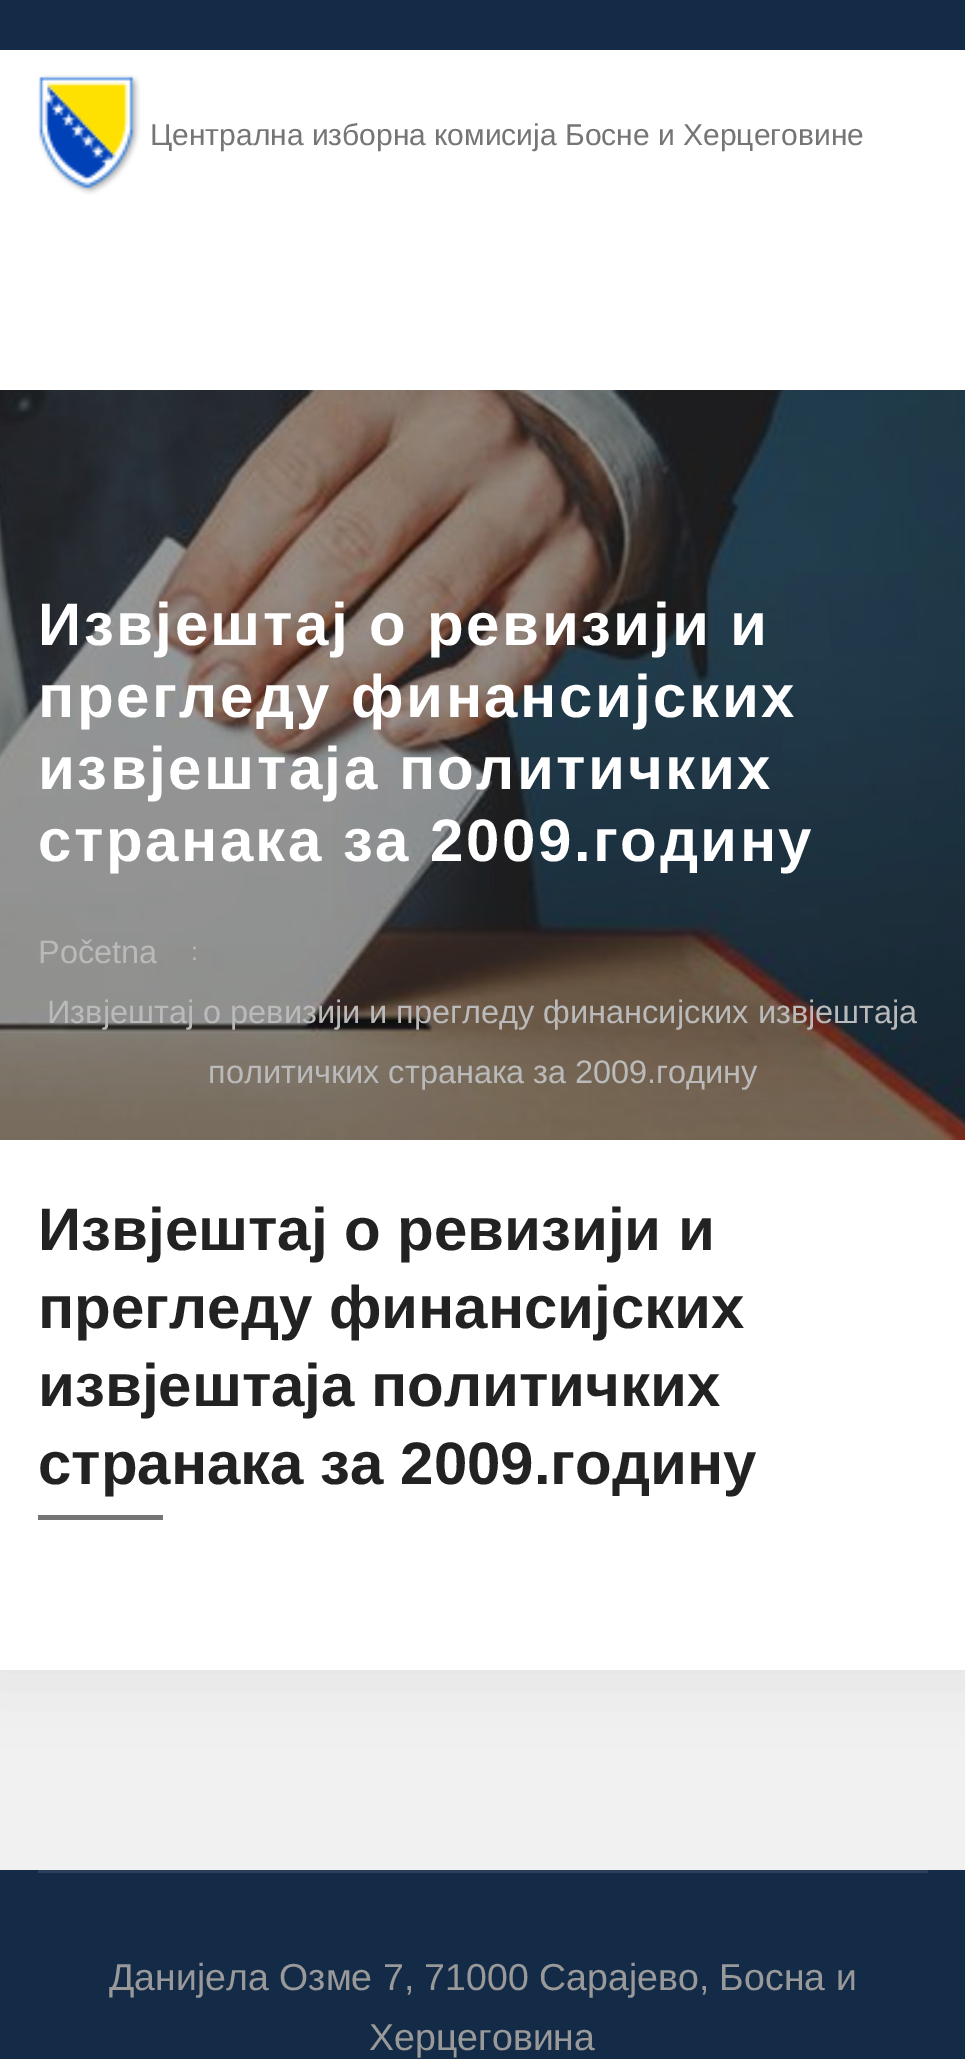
%!PS
<< /PageSize [965 2059] /PageUsesTransparency true >> setpagedevice
/mt/moveto load def
/co { dup -16 bitshift 255 div exch dup -8 bitshift 255 and 255 div exch 255 and 255 div setrgbcolor } def
/fn { [ exch dup neg 0 0 3 -1 roll 0 0 ] selectfont } def
/tx { co fn moveto show } def
/bx { co rectfill } def
/al { dup .setfillconstantalpha .setstrokeconstantalpha } def
/rr { 5 dict begin { /r /h /w /y /x } { exch def } forall
  x r add y moveto x w add y 2 copy h add r arct x w add y h add x 1 index r arct
  x y h add x y r arct x y 2 copy exch w add exch r arct closepath end } def
/sh { 12 dict begin { /a /b /q /h /w /y /x } { exch def } forall gsave /was 0 def
  9 -2 -9 { dup b mul 4 div /e exch def 1 sub .425 mul 2.718 exch exp 1 add a .99 .min exch div /now exch def
    1 1 now sub 1 was sub div sub al /was now def
    w h .min e 2 mul add 0 gt { x e sub y e sub w e 2 mul add h e 2 mul add
      q e add b .6 mul add w h .min 2 div e add .min 0 .max rr fill } if } for grestore end } def
/im { 5 dict begin { /h /w /y /x /name } { exch def } forall
  gsave x y translate w h scale
  w h 8 [w 0 0 h 0 0] name (r) file false 3 colorimage grestore end } def
0 .pushpdf14devicefilter
0 2059 translate 1 -1 scale
4 setmiterlimit
0 0 965 2059 16#FFFFFF bx
0 0 965 50 16#142B48 bx
(media/1.raw) 38 75 102 120 im
(media/2.raw) 0 390 965 750 im
0 1670 965 200 16#F1F1F1 bx
16#000000 co
-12 1128 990 555 0 37.5 .05 sh
0 1140 965 530 16#FFFFFF bx
38 1515 125 5 16#757575 bx
0 1870 965 189 16#142B48 bx
38 1870 890 3 16#2C405A bx
(Централна изборна комисија Босне и Херцеговине) 150 145 /LiberationSans-Regular 30 16#757575 tx
/LiberationSans-Bold 60 fn
16#FFFFFF co
38 645 mt 2.5 0 (Извјештај о ревизији и) ashow
38 717 mt 2.5 0 (прегледу финансијских) ashow
38 789 mt 2.5 0 (извјештаја политичких) ashow
38 861 mt 2.5 0 (странака за 2009.годину) ashow
(Početna) 38 963 /LiberationSans-Regular 32.5 16#BABABA tx
(:) 191 960 /LiberationSans-Regular 25 16#BABABA tx
(Извјештај о ревизији и прегледу финансијских извјештаја) 47 1023 /LiberationSans-Regular 32.5 16#BABABA tx
(политичких странака за 2009.годину) 208 1083 /LiberationSans-Regular 32.5 16#BABABA tx
(Извјештај о ревизији и) 38 1250 /LiberationSans-Bold 60 16#222222 tx
(прегледу финансијских) 38 1328 /LiberationSans-Bold 60 16#222222 tx
(извјештаја политичких) 38 1406 /LiberationSans-Bold 60 16#222222 tx
(странака за 2009.годину) 38 1484 /LiberationSans-Bold 60 16#222222 tx
(Данијела Озме 7, 71000 Сарајево, Босна и) 109 1990 /LiberationSans-Regular 37.5 16#999999 tx
(Херцеговина) 369 2050 /LiberationSans-Regular 37.5 16#999999 tx
.poppdf14devicefilter showpage
